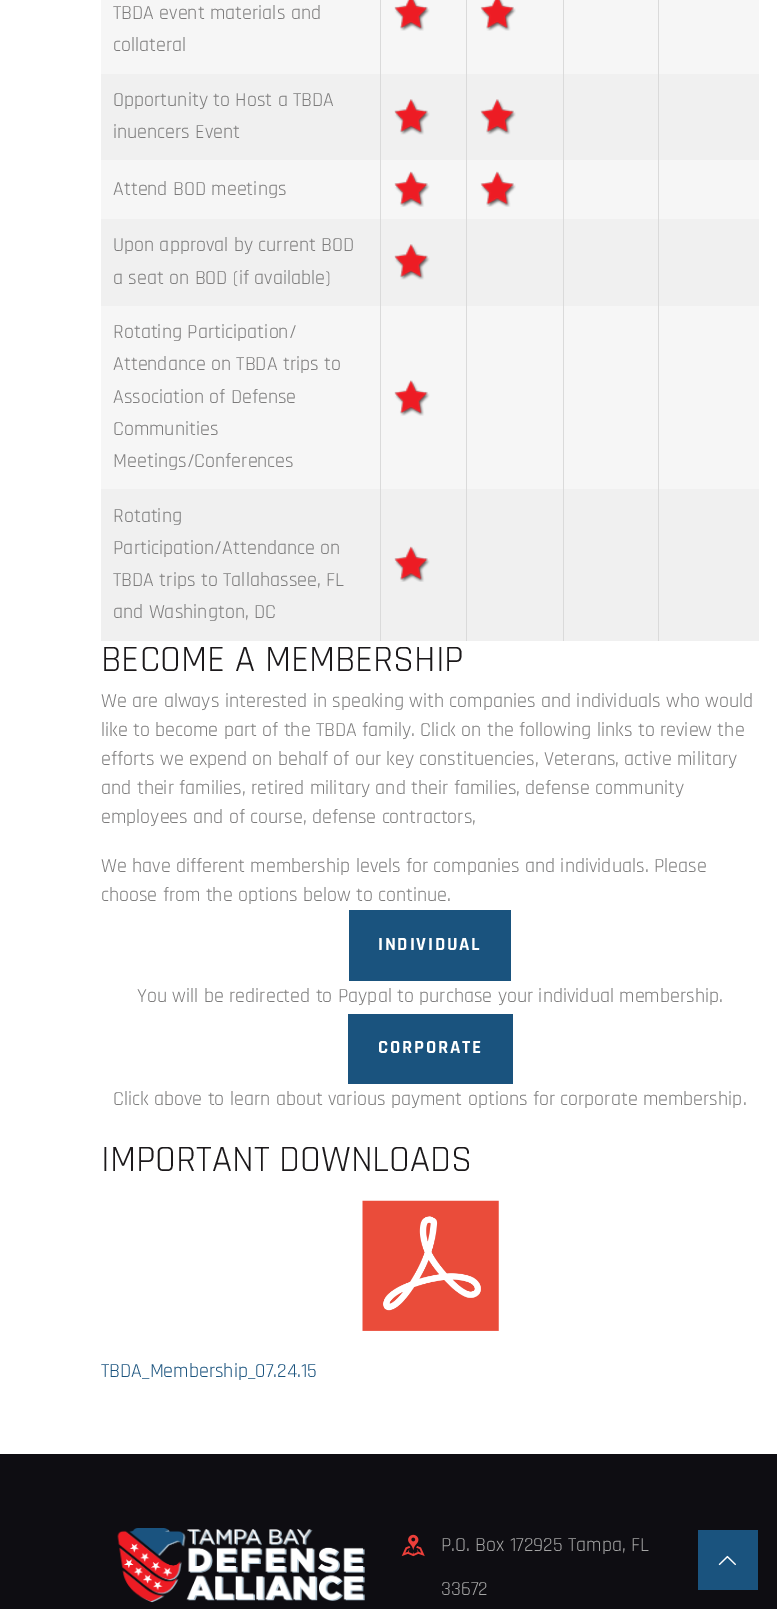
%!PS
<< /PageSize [777 1609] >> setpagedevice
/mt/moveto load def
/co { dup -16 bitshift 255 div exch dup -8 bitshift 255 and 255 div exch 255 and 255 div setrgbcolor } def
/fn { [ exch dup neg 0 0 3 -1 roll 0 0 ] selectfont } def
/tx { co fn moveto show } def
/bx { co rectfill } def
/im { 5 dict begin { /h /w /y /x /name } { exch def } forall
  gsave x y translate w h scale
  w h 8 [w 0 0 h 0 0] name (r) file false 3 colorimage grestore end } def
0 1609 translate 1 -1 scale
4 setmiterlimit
0 0 777 1609 16#FFFFFF bx
101 0 279 74 16#F6F6F6 bx
381 0 85 74 16#F6F6F6 bx
(media/1.raw) 394 0 36 31 im
467 0 96 74 16#F6F6F6 bx
(media/2.raw) 480 0 36 31 im
564 0 94 74 16#F6F6F6 bx
659 0 100 74 16#F6F6F6 bx
101 74 279 86 16#F0F0F0 bx
381 74 85 86 16#F0F0F0 bx
(media/3.raw) 394 99 36 36 im
467 74 96 86 16#F0F0F0 bx
(media/4.raw) 480 99 36 36 im
564 74 94 86 16#F0F0F0 bx
659 74 100 86 16#F0F0F0 bx
101 160 279 59 16#F6F6F6 bx
381 160 85 59 16#F6F6F6 bx
(media/5.raw) 394 171 36 36 im
467 160 96 59 16#F6F6F6 bx
(media/6.raw) 480 171 36 36 im
564 160 94 59 16#F6F6F6 bx
659 160 100 59 16#F6F6F6 bx
101 219 279 87 16#F0F0F0 bx
381 219 85 87 16#F0F0F0 bx
(media/7.raw) 394 244 36 36 im
467 219 96 87 16#F0F0F0 bx
564 219 94 87 16#F0F0F0 bx
659 219 100 87 16#F0F0F0 bx
101 306 279 183 16#F6F6F6 bx
381 306 85 183 16#F6F6F6 bx
(media/8.raw) 394 380 36 36 im
467 306 96 183 16#F6F6F6 bx
564 306 94 183 16#F6F6F6 bx
659 306 100 183 16#F6F6F6 bx
101 489 279 152 16#F0F0F0 bx
381 489 85 152 16#F0F0F0 bx
380 0 1 641 16#DADADA bx
(media/9.raw) 394 546 36 36 im
467 489 96 152 16#F0F0F0 bx
466 0 1 641 16#DADADA bx
564 489 94 152 16#F0F0F0 bx
563 0 1 641 16#DADADA bx
659 489 100 152 16#F0F0F0 bx
658 0 1 641 16#DADADA bx
349 910 162 71 16#1A537E bx
348 1014 165 70 16#1A537E bx
(media/10.raw) 362 1200 137 131 im
0 1454 777 155 16#0E0D12 bx
(media/11.raw) 117 1528 248 75 im
(media/12.raw) 401 1534 24 23 im
698 1530 60 60 16#1A537E bx
(media/13.raw) 718 1555 18 11 im
(TBDA event materials and) 113 19 /Rajdhani-Regular 20 16#7C7B7B tx
(collateral) 113 51 /Rajdhani-Regular 20 16#7C7B7B tx
(Opportunity to Host a TBDA) 113 106 /Rajdhani-Regular 20 16#7C7B7B tx
(inuencers Event) 113 138 /Rajdhani-Regular 20 16#7C7B7B tx
(Attend BOD meetings) 113 195 /Rajdhani-Regular 20 16#7C7B7B tx
(Upon approval by current BOD) 113 251 /Rajdhani-Regular 20 16#7C7B7B tx
(a seat on BOD \(if available\)) 113 284 /Rajdhani-Regular 20 16#7C7B7B tx
(Rotating Participation/) 113 338 /Rajdhani-Regular 20 16#7C7B7B tx
(Attendance on TBDA trips to) 113 370 /Rajdhani-Regular 20 16#7C7B7B tx
(Association of Defense) 113 403 /Rajdhani-Regular 20 16#7C7B7B tx
(Communities) 113 435 /Rajdhani-Regular 20 16#7C7B7B tx
(Meetings/Conferences) 113 467 /Rajdhani-Regular 20 16#7C7B7B tx
(Rotating) 113 522 /Rajdhani-Regular 20 16#7C7B7B tx
(Participation/Attendance on) 113 554 /Rajdhani-Regular 20 16#7C7B7B tx
(TBDA trips to Tallahassee, FL) 113 586 /Rajdhani-Regular 20 16#7C7B7B tx
(and Washington, DC) 113 618 /Rajdhani-Regular 20 16#7C7B7B tx
(BECOME A MEMBERSHIP) 101 671 /Rajdhani-Regular 37.5 16#1B181A tx
(We are always interested in speaking with companies and individuals who would) 101 707 /Rajdhani-Regular 20 16#7C7B7B tx
(like to become part of the TBDA family. Click on the following links to review the) 101 736 /Rajdhani-Regular 20 16#7C7B7B tx
(efforts we expend on behalf of our key constituencies, Veterans, active military) 101 765 /Rajdhani-Regular 20 16#7C7B7B tx
(and their families, retired military and their families, defense community) 101 794 /Rajdhani-Regular 20 16#7C7B7B tx
(employees and of course, defense contractors,) 101 823 /Rajdhani-Regular 20 16#7C7B7B tx
(We have different membership levels for companies and individuals. Please) 101 872 /Rajdhani-Regular 20 16#7C7B7B tx
(choose from the options below to continue.) 101 901 /Rajdhani-Regular 20 16#7C7B7B tx
/Rajdhani-Bold 18.75 fn
16#FFFFFF co
378 950 mt 1.75 0 (INDIVIDUAL) ashow
(You will be redirected to Paypal to purchase your individual membership.) 137 1002 /Rajdhani-Regular 20 16#7C7B7B tx
/Rajdhani-Bold 18.75 fn
16#FFFFFF co
378 1053 mt 1.75 0 (CORPORATE) ashow
(Click above to learn about various payment options for corporate membership.) 113 1105 /Rajdhani-Regular 20 16#7C7B7B tx
(IMPORTANT DOWNLOADS) 101 1171 /Rajdhani-Regular 37.5 16#1B181A tx
(TBDA_Membership_07.24.15) 101 1377 /Rajdhani-Regular 20 16#1A537E tx
(P.O. Box 172925 Tampa, FL) 441 1551 /Rajdhani-Regular 20 16#A6A6A6 tx
(33672) 441 1595 /Rajdhani-Regular 20 16#A6A6A6 tx
showpage
